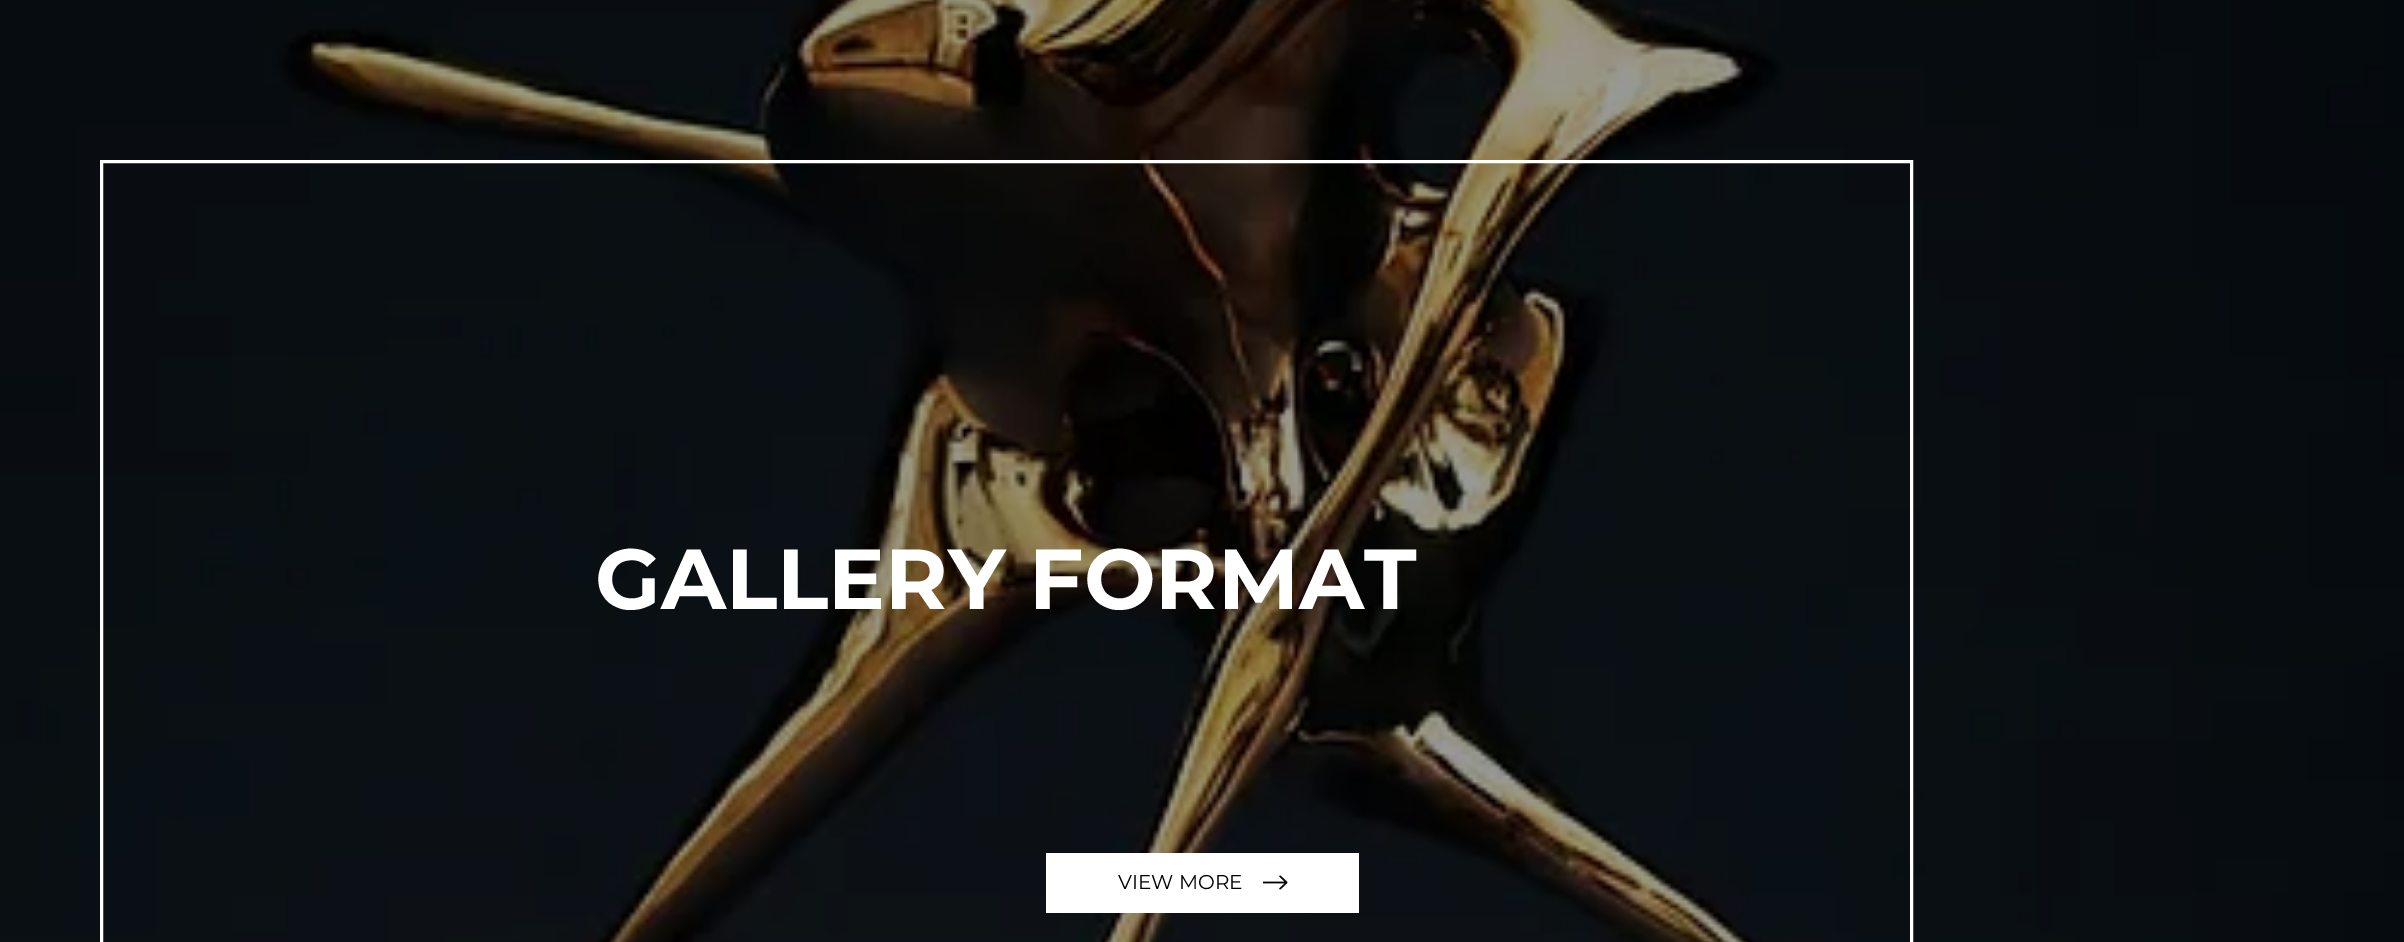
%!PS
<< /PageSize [2404 942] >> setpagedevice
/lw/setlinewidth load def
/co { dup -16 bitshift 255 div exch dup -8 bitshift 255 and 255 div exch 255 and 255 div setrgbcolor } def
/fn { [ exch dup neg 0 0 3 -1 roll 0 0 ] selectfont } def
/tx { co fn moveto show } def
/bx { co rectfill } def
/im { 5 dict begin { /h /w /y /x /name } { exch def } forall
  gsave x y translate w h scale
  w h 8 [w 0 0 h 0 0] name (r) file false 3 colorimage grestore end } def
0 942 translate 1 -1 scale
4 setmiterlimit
0 0 2404 942 16#000000 bx
(media/1.raw) 0 0 2404 942 im
16#FFFFFF co
3 lw
101.5 161.5 1810 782 rectstroke
1046 853 313 60 16#FFFFFF bx
(media/2.raw) 1263 875 25 15 im
(GALLERY FORMAT) 595 609 /Montserrat-Bold 85 16#FFFFFF tx
(VIEW MORE) 1118 889 /Montserrat-Regular 20 16#000000 tx
showpage
